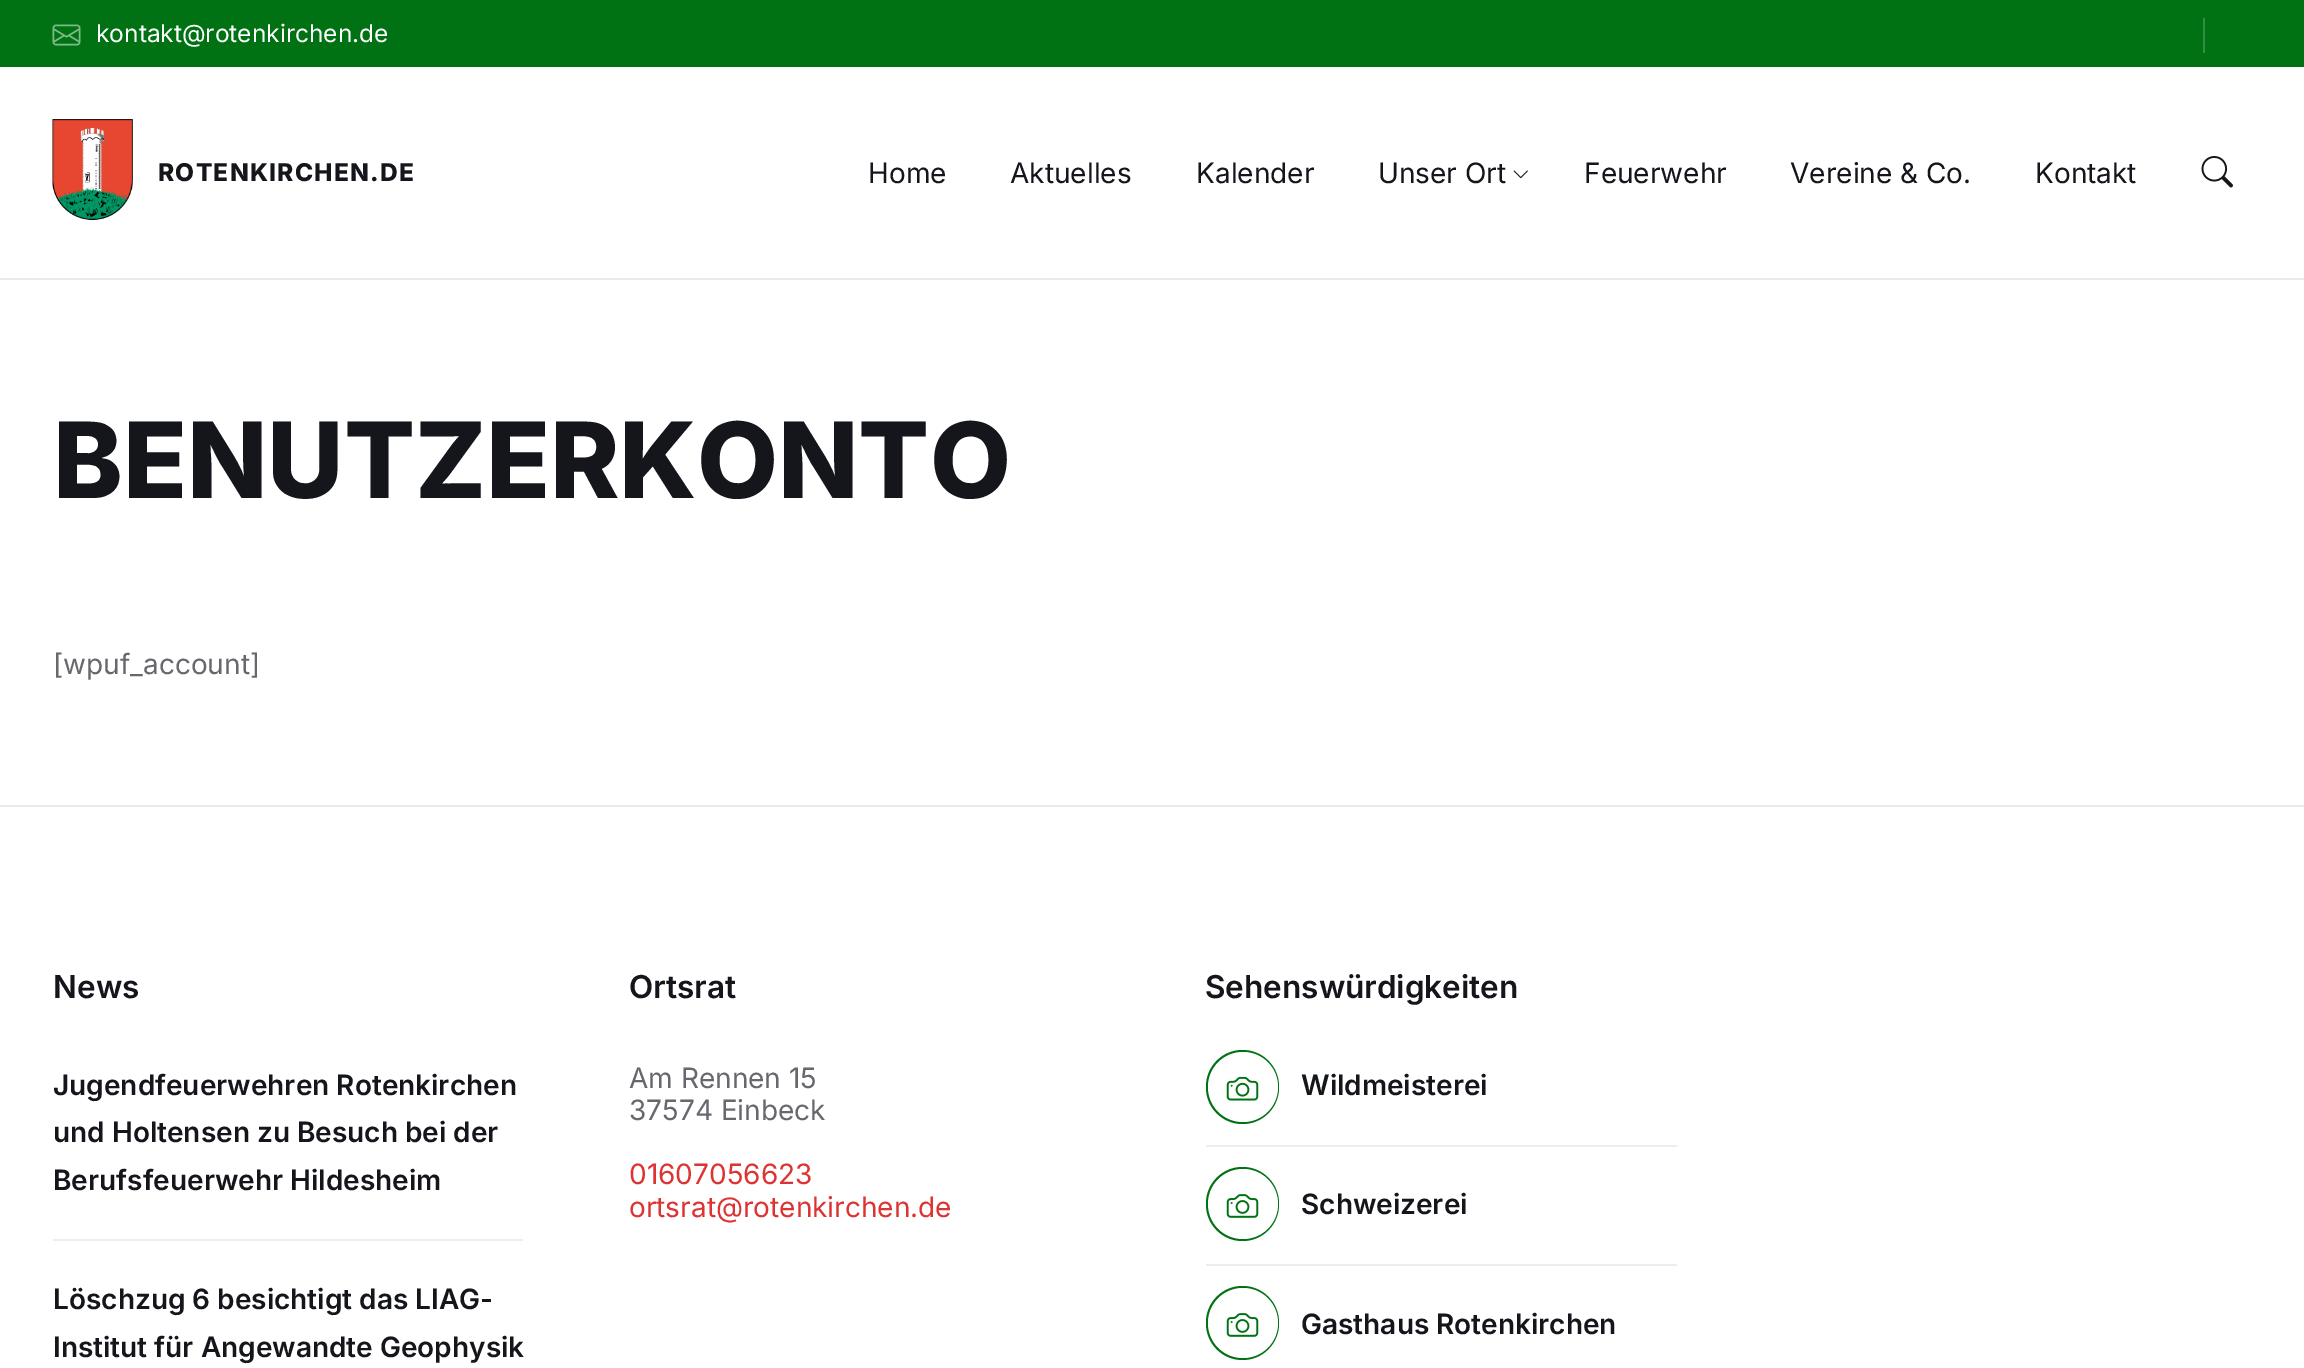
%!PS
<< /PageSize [2304 1368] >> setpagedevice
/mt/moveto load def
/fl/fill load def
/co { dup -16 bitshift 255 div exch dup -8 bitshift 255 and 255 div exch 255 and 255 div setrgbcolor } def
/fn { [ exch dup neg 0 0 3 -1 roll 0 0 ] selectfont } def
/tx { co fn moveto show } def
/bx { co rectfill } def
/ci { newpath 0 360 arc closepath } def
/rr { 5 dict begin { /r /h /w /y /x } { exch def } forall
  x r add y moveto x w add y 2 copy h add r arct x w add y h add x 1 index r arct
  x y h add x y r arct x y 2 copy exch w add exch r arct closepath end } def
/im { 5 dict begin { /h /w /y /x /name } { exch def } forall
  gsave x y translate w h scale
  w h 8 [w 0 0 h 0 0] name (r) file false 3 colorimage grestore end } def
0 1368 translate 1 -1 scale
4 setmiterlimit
0 0 2304 1368 16#FFFFFF bx
0 278 2304 2 16#E9E9EA bx
0 0 2304 67 16#007213 bx
(media/1.raw) 52 24 29 22 im
2203 18 2 35 16#338E42 bx
(media/2.raw) 52 119 81 102 im
(media/3.raw) 1513 170 15 9 im
(media/4.raw) 2201 156 32 32 im
0 805 2304 2 16#E9E9EA bx
53 1239 470 2 16#EDEDED bx
16#007213 co
1206 1050 73 74 36.5 rr fl
16#FFFFFF co
1243 1087 35 ci fl
(media/5.raw) 1226 1076 33 25 im
1206 1145 471 2 16#EDEDED bx
16#007213 co
1206 1167 73 74 36.5 rr fl
16#FFFFFF co
1243 1204 35 ci fl
(media/6.raw) 1226 1194 33 24 im
1206 1264 471 2 16#EDEDED bx
16#007213 co
1206 1286 73 74 36.5 rr fl
16#FFFFFF co
1243 1323 35 ci fl
(media/6.raw) 1226 1313 33 24 im
(kontakt@rotenkirchen.de) 96 42 /Inter-Regular 24.5 16#FFFFFF tx
/Inter-ExtraBold 24.5 fn
16#14161C co
158 181 mt 1.25 0 (ROTENKIRCHEN.DE) ashow
(Home) 868 183 /Inter-Regular 28 16#14161C tx
(Aktuelles) 1010 183 /Inter-Regular 28 16#14161C tx
(Kalender) 1196 183 /Inter-Regular 28 16#14161C tx
(Unser Ort) 1378 183 /Inter-Regular 28 16#14161C tx
(Feuerwehr) 1584 183 /Inter-Regular 28 16#14161C tx
(Vereine & Co.) 1790 183 /Inter-Regular 28 16#14161C tx
(Kontakt) 2035 183 /Inter-Regular 28 16#14161C tx
(BENUTZERKONTO) 53 498 /Inter-ExtraBold 105 16#14161C tx
([wpuf_account]) 53 674 /Inter-Regular 28 16#68676D tx
(News) 53 998 /Inter-SemiBold 31.5 16#14161C tx
(Jugendfeuerwehren Rotenkirchen) 53 1095 /Inter-SemiBold 28 16#14161C tx
(und Holtensen zu Besuch bei der) 53 1142 /Inter-SemiBold 28 16#14161C tx
(Berufsfeuerwehr Hildesheim) 53 1190 /Inter-SemiBold 28 16#14161C tx
(Löschzug 6 besichtigt das LIAG-) 53 1309 /Inter-SemiBold 28 16#14161C tx
(Institut für Angewandte Geophysik) 53 1357 /Inter-SemiBold 28 16#14161C tx
(Ortsrat) 629 998 /Inter-SemiBold 31.5 16#14161C tx
(Am Rennen 15) 629 1088 /Inter-Regular 28 16#68676D tx
(37574 Einbeck) 629 1120 /Inter-Regular 28 16#68676D tx
(01607056623) 629 1184 /Inter-Regular 28 16#DD3333 tx
(ortsrat@rotenkirchen.de) 629 1217 /Inter-Regular 28 16#DD3333 tx
(Sehenswürdigkeiten) 1205 998 /Inter-SemiBold 31.5 16#14161C tx
(Wildmeisterei) 1301 1095 /Inter-SemiBold 28 16#14161C tx
(Schweizerei) 1301 1214 /Inter-SemiBold 28 16#14161C tx
(Gasthaus Rotenkirchen) 1301 1334 /Inter-SemiBold 28 16#14161C tx
showpage
